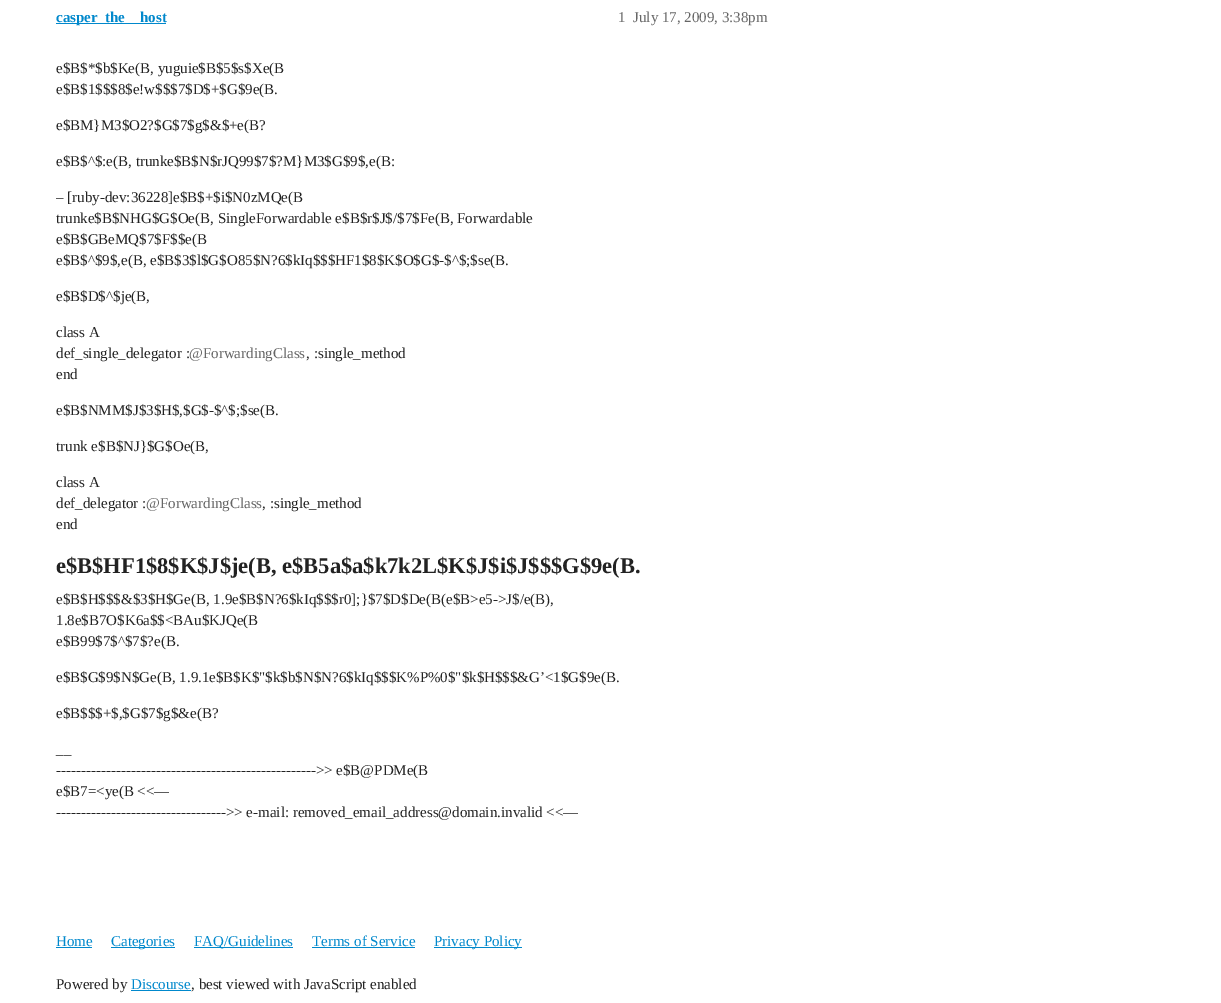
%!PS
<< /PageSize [1221 1003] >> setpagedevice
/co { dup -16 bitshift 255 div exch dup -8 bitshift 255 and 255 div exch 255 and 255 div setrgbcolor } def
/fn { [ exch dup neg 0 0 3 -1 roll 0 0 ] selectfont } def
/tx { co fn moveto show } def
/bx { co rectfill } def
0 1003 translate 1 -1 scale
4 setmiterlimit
0 0 1221 1003 16#FFFFFF bx
56 23 110 1 16#0088CC bx
56 947 36 1 16#0088CC bx
111 947 64 1 16#0088CC bx
194 947 99 1 16#0088CC bx
312 947 103 1 16#0088CC bx
434 947 88 1 16#0088CC bx
131 990 60 1 16#0088CC bx
(casper_the) 56 22 /LiberationSerif-Bold 15 16#0088CC tx
(host) 140 22 /LiberationSerif-Bold 15 16#0088CC tx
(1) 618 22 /LiberationSerif-Regular 15 16#666666 tx
(July 17, 2009, 3:38pm) 633 22 /LiberationSerif-Regular 15 16#666666 tx
(e$B$*$b$Ke\(B, yuguie$B$5$s$Xe\(B) 56 73 /LiberationSerif-Regular 15 16#222222 tx
(e$B$1$$$8$e!w$$$7$D$+$G$9e\(B.) 56 94 /LiberationSerif-Regular 15 16#222222 tx
(e$BM}M3$O2?$G$7$g$&$+e\(B?) 56 130 /LiberationSerif-Regular 15 16#222222 tx
(e$B$^$:e\(B, trunke$B$N$rJQ99$7$?M}M3$G$9$,e\(B:) 56 166 /LiberationSerif-Regular 15 16#222222 tx
(– [ruby-dev:36228]e$B$+$i$N0zMQe\(B) 56 202 /LiberationSerif-Regular 15 16#222222 tx
(trunke$B$NHG$G$Oe\(B, SingleForwardable e$B$r$J$/$7$Fe\(B, Forwardable) 56 223 /LiberationSerif-Regular 15 16#222222 tx
(e$B$GBeMQ$7$F$$e\(B) 56 244 /LiberationSerif-Regular 15 16#222222 tx
(e$B$^$9$,e\(B, e$B$3$l$G$O85$N?6$kIq$$$HF1$8$K$O$G$-$^$;$se\(B.) 56 265 /LiberationSerif-Regular 15 16#222222 tx
(e$B$D$^$je\(B,) 56 301 /LiberationSerif-Regular 15 16#222222 tx
(class A) 56 337 /LiberationSerif-Regular 15 16#222222 tx
(def_single_delegator :) 56 358 /LiberationSerif-Regular 15 16#222222 tx
(@ForwardingClass) 189 358 /LiberationSerif-Regular 15 16#666666 tx
(, :single_method) 306 358 /LiberationSerif-Regular 15 16#222222 tx
(end) 56 379 /LiberationSerif-Regular 15 16#222222 tx
(e$B$NMM$J$3$H$,$G$-$^$;$se\(B.) 56 415 /LiberationSerif-Regular 15 16#222222 tx
(trunk e$B$NJ}$G$Oe\(B,) 56 451 /LiberationSerif-Regular 15 16#222222 tx
(class A) 56 487 /LiberationSerif-Regular 15 16#222222 tx
(def_delegator :) 56 508 /LiberationSerif-Regular 15 16#222222 tx
(@ForwardingClass) 146 508 /LiberationSerif-Regular 15 16#666666 tx
(, :single_method) 262 508 /LiberationSerif-Regular 15 16#222222 tx
(end) 56 529 /LiberationSerif-Regular 15 16#222222 tx
(e$B$HF1$8$K$J$je\(B, e$B5a$a$k7k2L$K$J$i$J$$$G$9e\(B.) 56 573 /LiberationSerif-Bold 22.5 16#222222 tx
(e$B$H$$$&$3$H$Ge\(B, 1.9e$B$N?6$kIq$$$r0];}$7$D$De\(B\(e$B>e5->J$/e\(B\),) 56 604 /LiberationSerif-Regular 15 16#222222 tx
(1.8e$B7O$K6a$$<BAu$KJQe\(B) 56 625 /LiberationSerif-Regular 15 16#222222 tx
(e$B99$7$^$7$?e\(B.) 56 646 /LiberationSerif-Regular 15 16#222222 tx
(e$B$G$9$N$Ge\(B, 1.9.1e$B$K$"$k$b$N$N?6$kIq$$$K%P%0$"$k$H$$$&G’<1$G$9e\(B.) 56 682 /LiberationSerif-Regular 15 16#222222 tx
(e$B$$$+$,$G$7$g$&e\(B?) 56 718 /LiberationSerif-Regular 15 16#222222 tx
(__) 56 754 /LiberationSerif-Regular 15 16#222222 tx
(---------------------------------------------------->> e$B@PDMe\(B) 56 775 /LiberationSerif-Regular 15 16#222222 tx
(e$B7=<ye\(B <<—) 56 796 /LiberationSerif-Regular 15 16#222222 tx
(---------------------------------->> e-mail: removed_email_address@domain.invalid <<—) 56 817 /LiberationSerif-Regular 15 16#222222 tx
(Home) 56 946 /LiberationSerif-Regular 15 16#0088CC tx
(Categories) 111 946 /LiberationSerif-Regular 15 16#0088CC tx
(FAQ/Guidelines) 194 946 /LiberationSerif-Regular 15 16#0088CC tx
(Terms of Service) 312 946 /LiberationSerif-Regular 15 16#0088CC tx
(Privacy Policy) 434 946 /LiberationSerif-Regular 15 16#0088CC tx
(Powered by) 56 989 /LiberationSerif-Regular 15 16#222222 tx
(Discourse) 131 989 /LiberationSerif-Regular 15 16#0088CC tx
(, best viewed with JavaScript enabled) 191 989 /LiberationSerif-Regular 15 16#222222 tx
showpage
